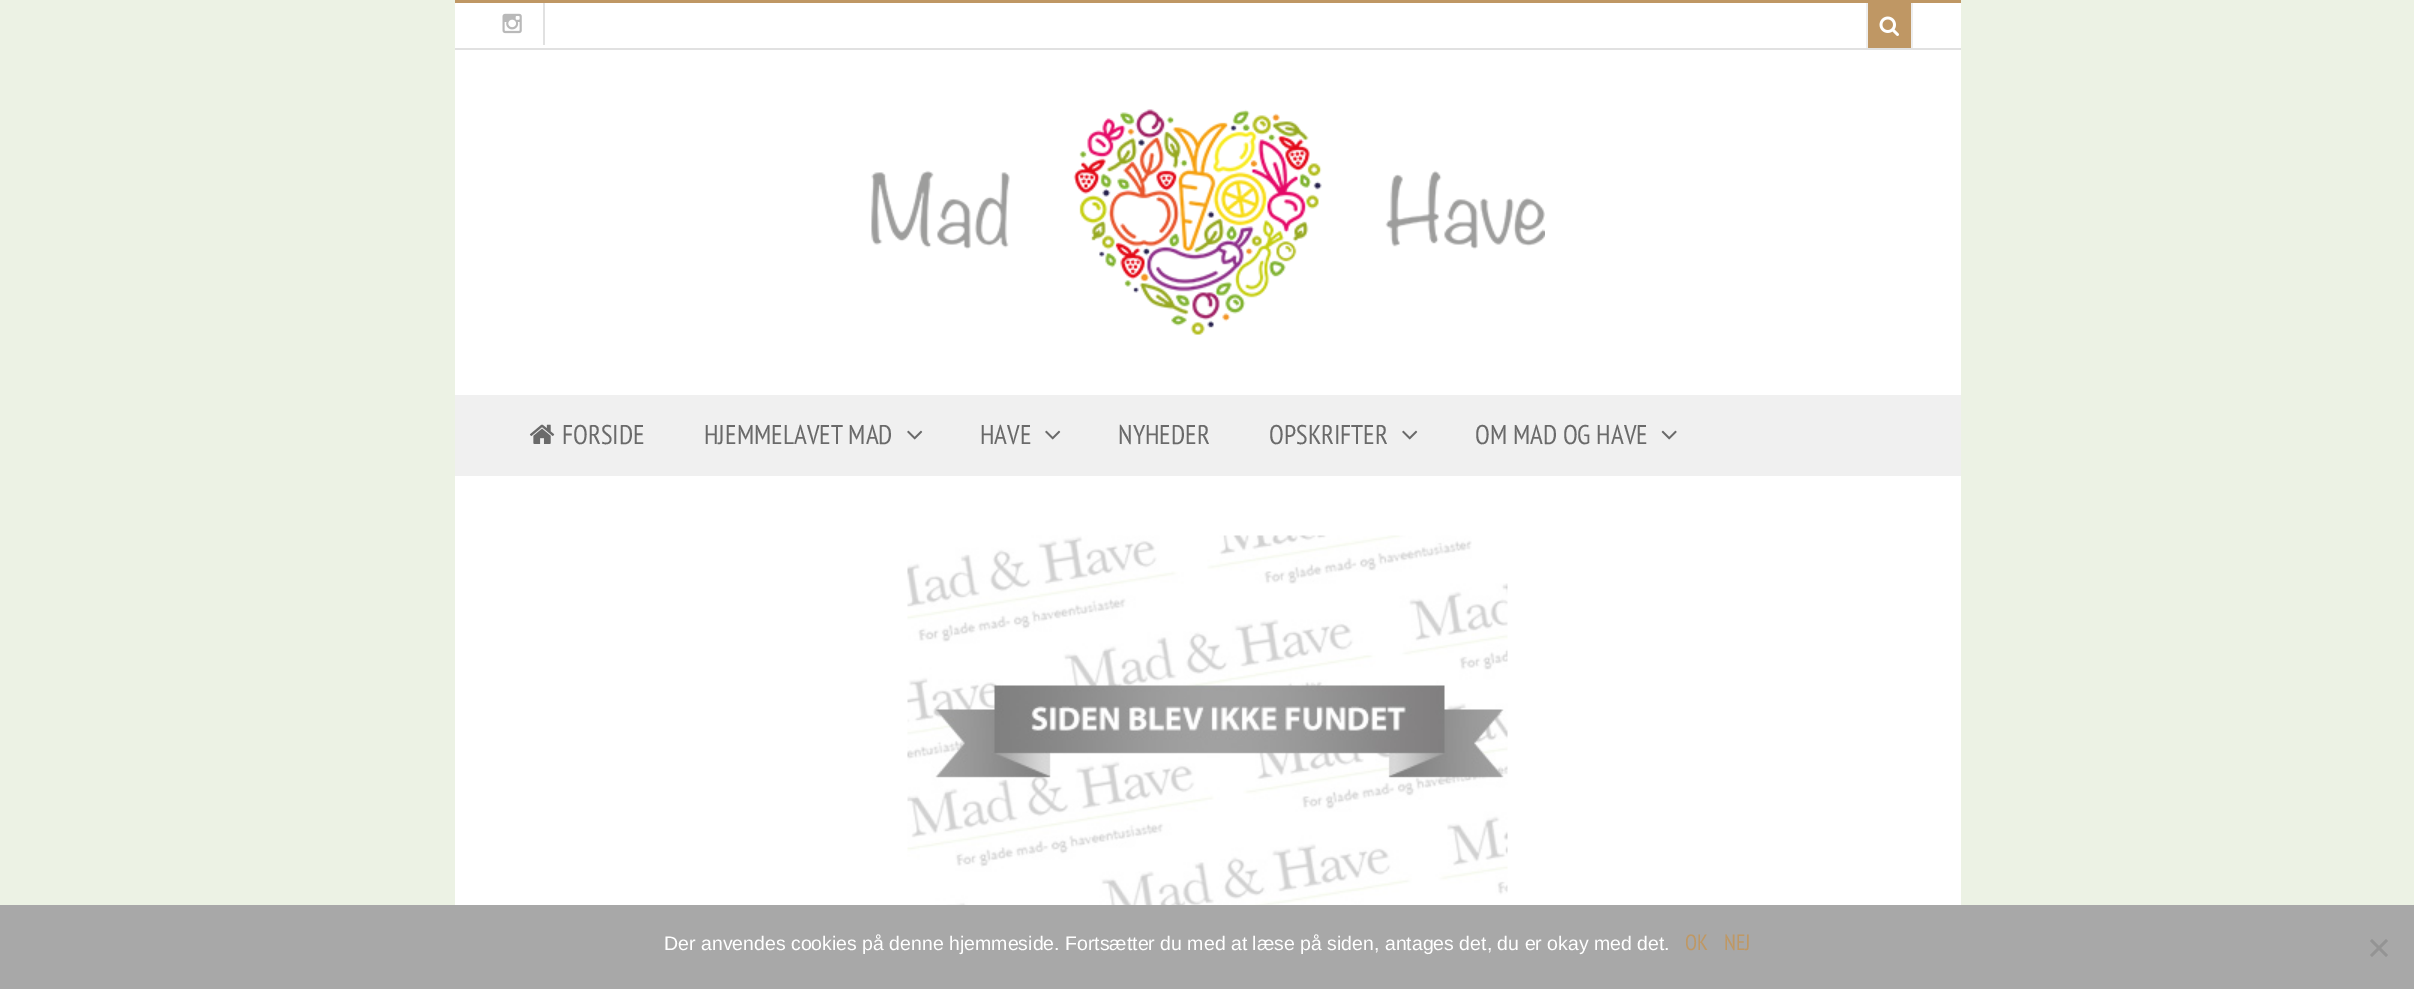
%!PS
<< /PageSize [2414 989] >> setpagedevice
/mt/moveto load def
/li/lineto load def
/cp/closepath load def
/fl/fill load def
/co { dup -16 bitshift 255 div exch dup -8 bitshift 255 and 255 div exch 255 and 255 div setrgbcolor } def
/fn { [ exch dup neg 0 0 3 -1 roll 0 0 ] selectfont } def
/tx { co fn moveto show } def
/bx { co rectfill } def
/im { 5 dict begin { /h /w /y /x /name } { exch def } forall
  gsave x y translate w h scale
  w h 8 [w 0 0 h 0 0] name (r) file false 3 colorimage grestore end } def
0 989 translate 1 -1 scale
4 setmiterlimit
0 0 2414 989 16#ECF2E4 bx
455 3 1506 902 16#FFFFFF bx
455 0 1506 3 16#BF9764 bx
455 48 1506 2 16#E1E1E1 bx
543 3 2 42 16#E1E1E1 bx
(media/1.raw) 502 13 20 21 im
1868 3 43 45 16#BF9764 bx
1911 3 2 45 16#EEEEEE bx
1866 3 2 45 16#EEEEEE bx
(media/2.raw) 1879 16 20 20 im
(media/3.raw) 871 109 674 226 im
455 395 1506 81 16#F0F0F0 bx
(media/4.raw) 529 424 26 20 im
(media/5.raw) 907 430 16 10 im
(media/5.raw) 1045 430 16 10 im
(media/5.raw) 1402 430 16 10 im
(media/6.raw) 1661 430 16 10 im
(media/7.raw) 907 535 601 370 im
0 905 2414 84 16#A8A8A8 bx
16#949494 co
2386 939 mt 2388 941 li 2372 957 li 2370 955 li cp fl
2370 941 mt 2372 939 li 2388 955 li 2386 957 li cp fl
(FORSIDE) 562 444 /PTSansNarrow-Regular 27 16#6A6A6A tx
(HJEMMELAVET MAD) 704 444 /PTSansNarrow-Regular 27 16#6A6A6A tx
(HAVE) 980 444 /PTSansNarrow-Regular 27 16#6A6A6A tx
(NYHEDER) 1118 444 /PTSansNarrow-Regular 27 16#6A6A6A tx
(OPSKRIFTER) 1269 444 /PTSansNarrow-Regular 27 16#6A6A6A tx
(OM MAD OG HAVE) 1475 444 /PTSansNarrow-Regular 27 16#6A6A6A tx
(Der anvendes cookies på denne hjemmeside. Fortsætter du med at læse på siden, antages det, du er okay med det.) 664 950 /LiberationSans-Regular 19.5 16#FFFFFF tx
(OK) 1685 950 /PTSansNarrow-Regular 22 16#BF9864 tx
(NEJ) 1724 950 /PTSansNarrow-Regular 22 16#BF9864 tx
showpage
